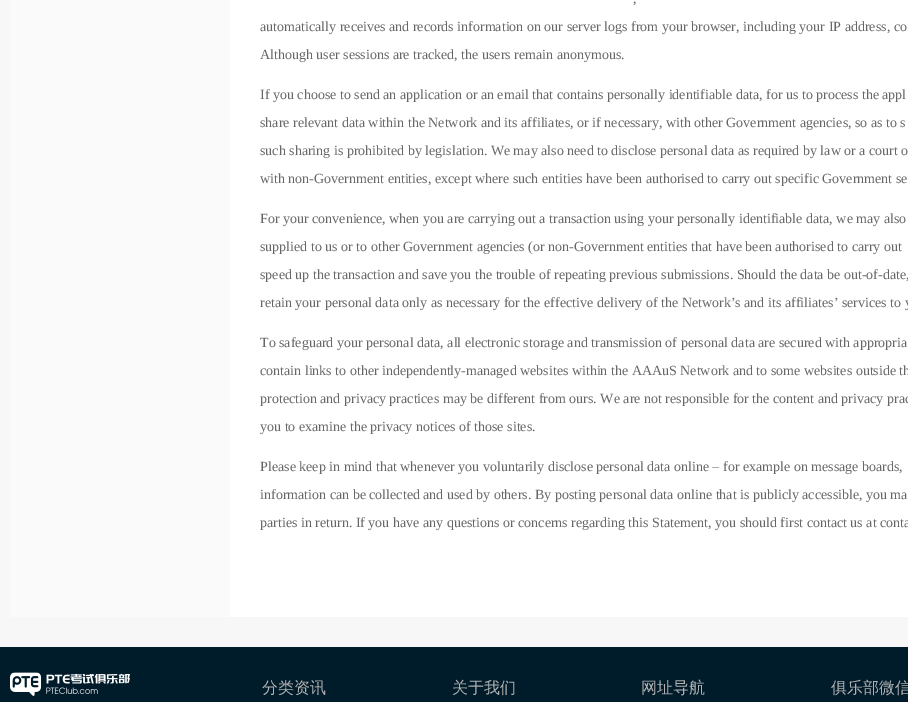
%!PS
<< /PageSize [908 702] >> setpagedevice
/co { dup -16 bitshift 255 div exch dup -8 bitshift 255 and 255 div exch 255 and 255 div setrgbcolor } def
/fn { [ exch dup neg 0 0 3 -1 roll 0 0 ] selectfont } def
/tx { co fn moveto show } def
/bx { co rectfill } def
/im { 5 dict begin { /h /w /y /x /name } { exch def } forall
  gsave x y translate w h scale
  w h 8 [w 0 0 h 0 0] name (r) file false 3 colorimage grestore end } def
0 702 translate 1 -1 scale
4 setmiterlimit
0 0 908 702 16#F7F7F7 bx
10 0 220 617 16#FAFAFA bx
230 0 678 617 16#FFFFFF bx
0 647 908 55 16#001B2A bx
(media/1.raw) 10 672 120 24 im
(,) 633 3 /LiberationSerif-Regular 14 16#666666 tx
(automatically receives and records information on our server logs from your browser, including your IP address, co) 260 31 /LiberationSerif-Regular 14 16#666666 tx
(Although user sessions are tracked, the users remain anonymous.) 260 59 /LiberationSerif-Regular 14 16#666666 tx
(If you choose to send an application or an email that contains personally identifiable data, for us to process the appl) 260 99 /LiberationSerif-Regular 14 16#666666 tx
(share relevant data within the Network and its affiliates, or if necessary, with other Government agencies, so as to s) 260 127 /LiberationSerif-Regular 14 16#666666 tx
(such sharing is prohibited by legislation. We may also need to disclose personal data as required by law or a court o) 260 155 /LiberationSerif-Regular 14 16#666666 tx
(with non-Government entities, except where such entities have been authorised to carry out specific Government se) 260 183 /LiberationSerif-Regular 14 16#666666 tx
(For your convenience, when you are carrying out a transaction using your personally identifiable data, we may also) 260 223 /LiberationSerif-Regular 14 16#666666 tx
(supplied to us or to other Government agencies \(or non-Government entities that have been authorised to carry out) 260 251 /LiberationSerif-Regular 14 16#666666 tx
(speed up the transaction and save you the trouble of repeating previous submissions. Should the data be out-of-date,) 260 279 /LiberationSerif-Regular 14 16#666666 tx
(retain your personal data only as necessary for the effective delivery of the Network’s and its affiliates’ services to y) 260 307 /LiberationSerif-Regular 14 16#666666 tx
(To safeguard your personal data, all electronic storage and transmission of personal data are secured with appropria) 260 347 /LiberationSerif-Regular 14 16#666666 tx
(contain links to other independently-managed websites within the AAAuS Network and to some websites outside th) 260 375 /LiberationSerif-Regular 14 16#666666 tx
(protection and privacy practices may be different from ours. We are not responsible for the content and privacy prac) 260 403 /LiberationSerif-Regular 14 16#666666 tx
(you to examine the privacy notices of those sites.) 260 431 /LiberationSerif-Regular 14 16#666666 tx
(Please keep in mind that whenever you voluntarily disclose personal data online – for example on message boards,) 260 471 /LiberationSerif-Regular 14 16#666666 tx
(information can be collected and used by others. By posting personal data online that is publicly accessible, you ma) 260 499 /LiberationSerif-Regular 14 16#666666 tx
(parties in return. If you have any questions or concerns regarding this Statement, you should first contact us at conta) 260 527 /LiberationSerif-Regular 14 16#666666 tx
(分类资讯) 262 693 /WenQuanYiZenHei-Medium 16 16#B3B3B3 tx
(关于我们) 452 693 /WenQuanYiZenHei-Medium 16 16#B3B3B3 tx
(网址导航) 641 693 /WenQuanYiZenHei-Medium 16 16#B3B3B3 tx
(俱乐部微信) 831 693 /WenQuanYiZenHei-Medium 16 16#B3B3B3 tx
showpage
